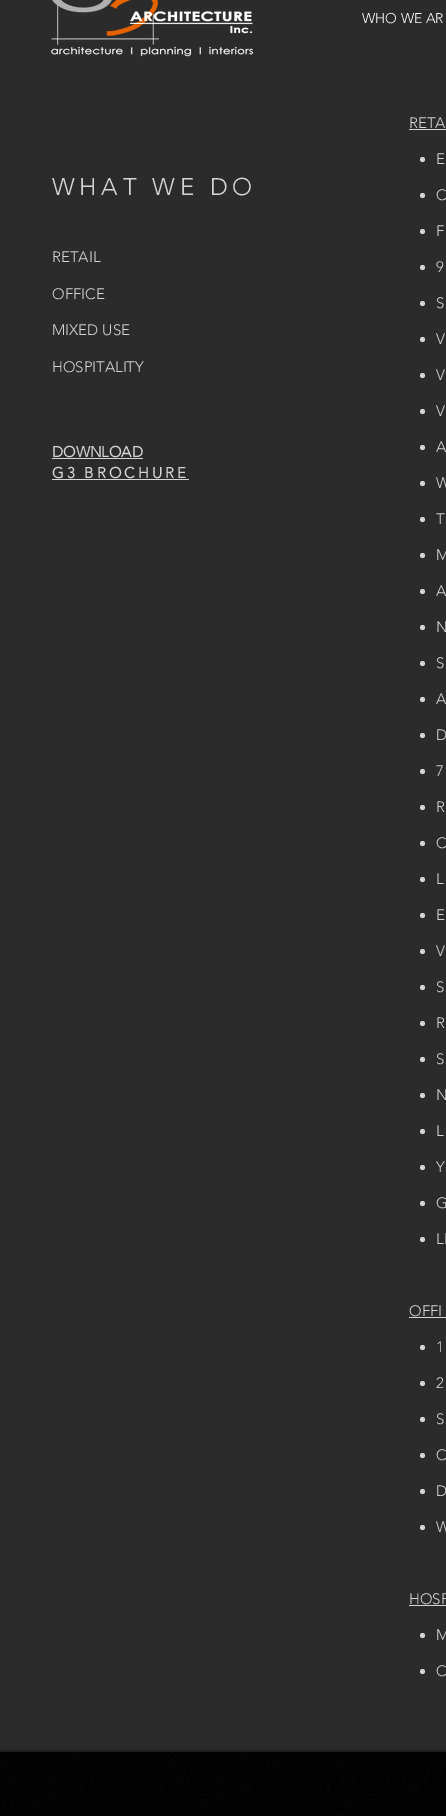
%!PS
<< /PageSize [446 1816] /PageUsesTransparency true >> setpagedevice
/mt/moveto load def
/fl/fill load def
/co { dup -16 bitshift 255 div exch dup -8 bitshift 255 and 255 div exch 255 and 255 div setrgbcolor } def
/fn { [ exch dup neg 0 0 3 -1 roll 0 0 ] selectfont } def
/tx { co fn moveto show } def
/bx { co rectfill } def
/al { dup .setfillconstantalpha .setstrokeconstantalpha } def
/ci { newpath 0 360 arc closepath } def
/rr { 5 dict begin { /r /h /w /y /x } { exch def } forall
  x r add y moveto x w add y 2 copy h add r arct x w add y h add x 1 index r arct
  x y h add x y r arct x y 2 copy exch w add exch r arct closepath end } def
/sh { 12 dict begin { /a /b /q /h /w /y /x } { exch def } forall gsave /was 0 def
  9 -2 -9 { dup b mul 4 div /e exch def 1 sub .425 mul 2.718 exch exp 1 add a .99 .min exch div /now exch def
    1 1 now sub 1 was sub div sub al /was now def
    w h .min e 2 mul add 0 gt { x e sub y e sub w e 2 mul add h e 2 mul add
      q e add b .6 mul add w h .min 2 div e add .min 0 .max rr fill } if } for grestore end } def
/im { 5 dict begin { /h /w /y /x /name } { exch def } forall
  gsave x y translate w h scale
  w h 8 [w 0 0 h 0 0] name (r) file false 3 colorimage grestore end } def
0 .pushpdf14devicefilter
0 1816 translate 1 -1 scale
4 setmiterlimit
0 0 446 1816 16#2B2B2B bx
(media/1.raw) 51 0 203 57 im
409 129 37 1 16#D5D5D5 bx
422.5 159.5 2.5 ci fl
422.5 195.5 2.5 ci fl
422.5 231.5 2.5 ci fl
422.5 267.5 2.5 ci fl
422.5 303.5 2.5 ci fl
422.5 339.5 2.5 ci fl
422.5 375.5 2.5 ci fl
422.5 411.5 2.5 ci fl
422.5 447.5 2.5 ci fl
422.5 483.5 2.5 ci fl
422.5 519.5 2.5 ci fl
422.5 555.5 2.5 ci fl
422.5 591.5 2.5 ci fl
422.5 627.5 2.5 ci fl
422.5 663.5 2.5 ci fl
422.5 699.5 2.5 ci fl
422.5 735.5 2.5 ci fl
422.5 771.5 2.5 ci fl
422.5 807.5 2.5 ci fl
422.5 843.5 2.5 ci fl
422.5 879.5 2.5 ci fl
422.5 915.5 2.5 ci fl
422.5 951.5 2.5 ci fl
422.5 987.5 2.5 ci fl
422.5 1023.5 2.5 ci fl
422.5 1059.5 2.5 ci fl
422.5 1095.5 2.5 ci fl
422.5 1131.5 2.5 ci fl
422.5 1167.5 2.5 ci fl
422.5 1203.5 2.5 ci fl
422.5 1239.5 2.5 ci fl
409 1317 37 1 16#D5D5D5 bx
422.5 1347.5 2.5 ci fl
422.5 1383.5 2.5 ci fl
422.5 1419.5 2.5 ci fl
422.5 1455.5 2.5 ci fl
422.5 1491.5 2.5 ci fl
422.5 1527.5 2.5 ci fl
409 1605 37 1 16#D5D5D5 bx
422.5 1635.5 2.5 ci fl
422.5 1671.5 2.5 ci fl
52 458 91 1 16#D5D5D5 bx
52 479 137 1 16#D5D5D5 bx
16#000000 co
0 1752 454 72 0 2.5 .7 sh
0 1752 446 64 16#000000 bx
(media/2.raw) 0 1752 446 64 im
(WHO WE AR) 362 23 /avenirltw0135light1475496-Light 14 16#FFFFFF tx
/avenirltw0135light1475496-Light 24 fn
16#D5D5D5 co
52 195 mt 4.75 0 (WHAT WE DO) ashow
(RETAIL) 52 262 /avenirltw0135light1475496-Light 15 16#D5D5D5 tx
(OFFICE) 52 299 /avenirltw0135light1475496-Light 15 16#D5D5D5 tx
(MIXED USE) 52 335 /avenirltw0135light1475496-Light 15 16#D5D5D5 tx
(HOSPITALITY) 52 372 /avenirltw0135light1475496-Light 15 16#D5D5D5 tx
(RETA) 409 128 /avenirltw0135light1475496-Light 15 16#D5D5D5 tx
(E) 436 164 /avenirltw0135light1475496-Light 15 16#D5D5D5 tx
(C) 436 200 /avenirltw0135light1475496-Light 15 16#D5D5D5 tx
(F) 436 236 /avenirltw0135light1475496-Light 15 16#D5D5D5 tx
(9) 436 272 /avenirltw0135light1475496-Light 15 16#D5D5D5 tx
(S) 436 308 /avenirltw0135light1475496-Light 15 16#D5D5D5 tx
(V) 436 344 /avenirltw0135light1475496-Light 15 16#D5D5D5 tx
(V) 436 380 /avenirltw0135light1475496-Light 15 16#D5D5D5 tx
(V) 436 416 /avenirltw0135light1475496-Light 15 16#D5D5D5 tx
(A) 436 452 /avenirltw0135light1475496-Light 15 16#D5D5D5 tx
(W) 436 488 /avenirltw0135light1475496-Light 15 16#D5D5D5 tx
(T) 436 524 /avenirltw0135light1475496-Light 15 16#D5D5D5 tx
(M) 436 560 /avenirltw0135light1475496-Light 15 16#D5D5D5 tx
(A) 436 596 /avenirltw0135light1475496-Light 15 16#D5D5D5 tx
(N) 436 632 /avenirltw0135light1475496-Light 15 16#D5D5D5 tx
(S) 436 668 /avenirltw0135light1475496-Light 15 16#D5D5D5 tx
(A) 436 704 /avenirltw0135light1475496-Light 15 16#D5D5D5 tx
(D) 436 740 /avenirltw0135light1475496-Light 15 16#D5D5D5 tx
(7) 436 776 /avenirltw0135light1475496-Light 15 16#D5D5D5 tx
(R) 436 812 /avenirltw0135light1475496-Light 15 16#D5D5D5 tx
(C) 436 848 /avenirltw0135light1475496-Light 15 16#D5D5D5 tx
(L) 436 884 /avenirltw0135light1475496-Light 15 16#D5D5D5 tx
(E) 436 920 /avenirltw0135light1475496-Light 15 16#D5D5D5 tx
(V) 436 956 /avenirltw0135light1475496-Light 15 16#D5D5D5 tx
(S) 436 992 /avenirltw0135light1475496-Light 15 16#D5D5D5 tx
(R) 436 1028 /avenirltw0135light1475496-Light 15 16#D5D5D5 tx
(S) 436 1064 /avenirltw0135light1475496-Light 15 16#D5D5D5 tx
(N) 436 1100 /avenirltw0135light1475496-Light 15 16#D5D5D5 tx
(L) 436 1136 /avenirltw0135light1475496-Light 15 16#D5D5D5 tx
(Y) 436 1172 /avenirltw0135light1475496-Light 15 16#D5D5D5 tx
(G) 436 1208 /avenirltw0135light1475496-Light 15 16#D5D5D5 tx
(LI) 436 1244 /avenirltw0135light1475496-Light 15 16#D5D5D5 tx
(OFFI) 409 1316 /avenirltw0135light1475496-Light 15 16#D5D5D5 tx
(1) 436 1352 /avenirltw0135light1475496-Light 15 16#D5D5D5 tx
(2) 436 1388 /avenirltw0135light1475496-Light 15 16#D5D5D5 tx
(S) 436 1424 /avenirltw0135light1475496-Light 15 16#D5D5D5 tx
(C) 436 1460 /avenirltw0135light1475496-Light 15 16#D5D5D5 tx
(D) 436 1496 /avenirltw0135light1475496-Light 15 16#D5D5D5 tx
(W) 436 1532 /avenirltw0135light1475496-Light 15 16#D5D5D5 tx
(HOSP) 409 1604 /avenirltw0135light1475496-Light 15 16#D5D5D5 tx
(M) 436 1640 /avenirltw0135light1475496-Light 15 16#D5D5D5 tx
(C) 436 1676 /avenirltw0135light1475496-Light 15 16#D5D5D5 tx
(DOWNLOAD) 52 457 /avenirltw0135light1475496-Bold 15 16#D5D5D5 tx
52 478 mt 3 0 (G3 BROCHURE) ashow
.poppdf14devicefilter showpage
